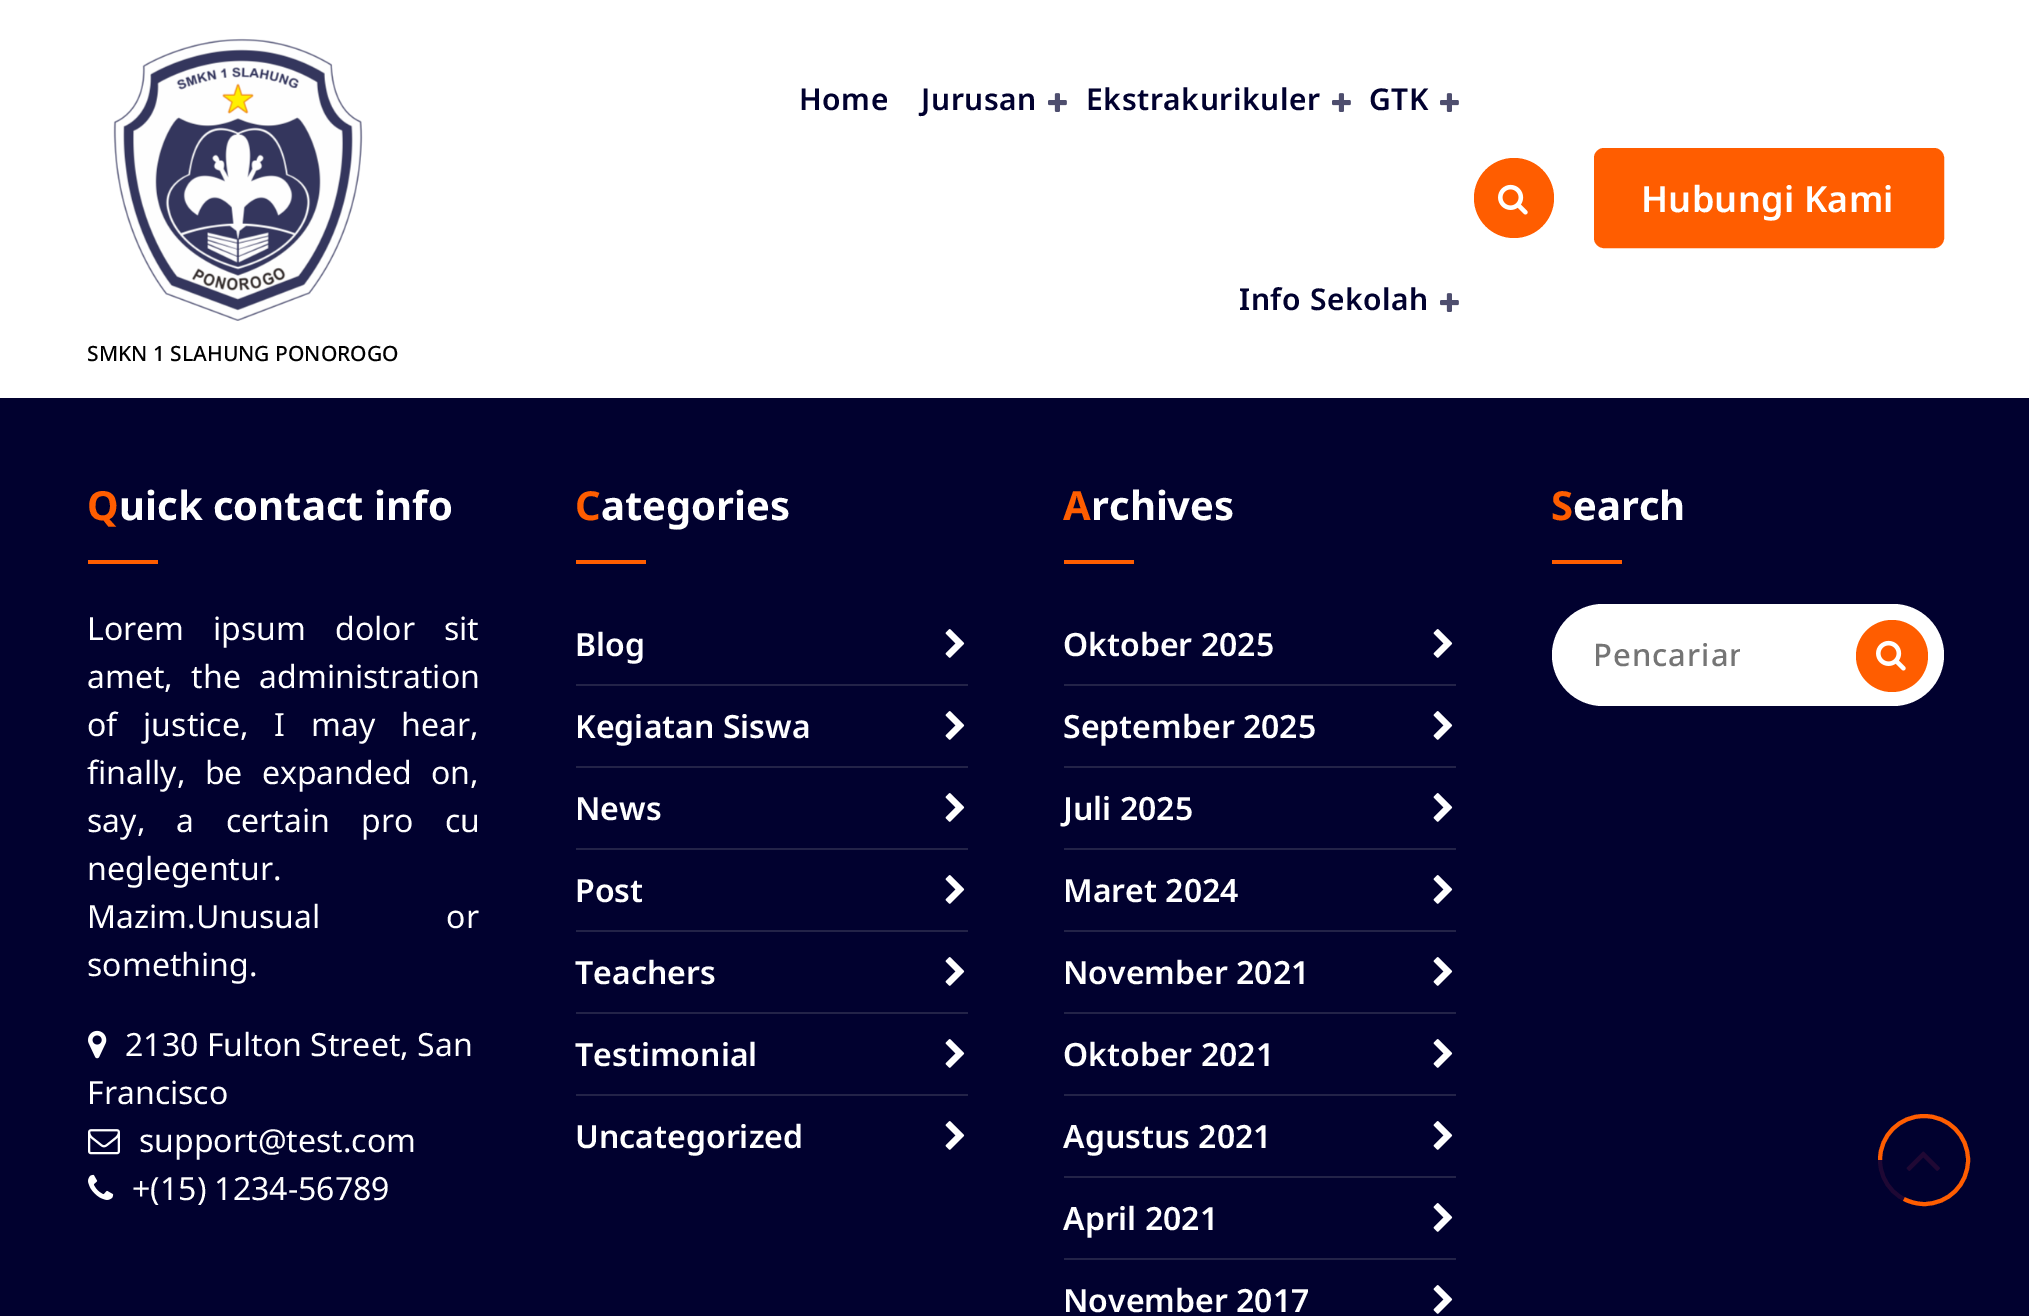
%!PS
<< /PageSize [2029 1316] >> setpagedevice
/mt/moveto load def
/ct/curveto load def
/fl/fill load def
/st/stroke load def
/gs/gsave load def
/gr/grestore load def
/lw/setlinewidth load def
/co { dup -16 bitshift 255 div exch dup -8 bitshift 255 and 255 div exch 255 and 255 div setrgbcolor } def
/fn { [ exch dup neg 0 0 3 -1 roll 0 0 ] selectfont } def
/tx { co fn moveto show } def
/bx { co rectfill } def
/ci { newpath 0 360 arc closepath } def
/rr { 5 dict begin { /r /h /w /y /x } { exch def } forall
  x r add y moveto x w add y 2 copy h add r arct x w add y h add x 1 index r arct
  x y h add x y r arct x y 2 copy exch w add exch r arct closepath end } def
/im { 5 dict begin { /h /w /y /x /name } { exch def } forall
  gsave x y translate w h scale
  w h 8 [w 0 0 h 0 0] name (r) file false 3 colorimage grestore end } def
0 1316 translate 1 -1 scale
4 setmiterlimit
0 0 2029 1316 16#01012F bx
0 0 2029 398 16#FFFFFF bx
(media/1.raw) 1048 93 19 19 im
(media/1.raw) 1332 93 19 19 im
(media/1.raw) 1440 93 19 19 im
(media/1.raw) 1440 293 19 19 im
16#FF5D00 co
1514 198 40 ci fl
(media/2.raw) 1498 184 30 31 im
1596 150 346 96 8 rr gs fl gr
4 lw
st
(media/3.raw) 113 38 250 283 im
88 560 70 4 16#FF5D00 bx
(media/4.raw) 88 1030 19 29 im
(media/5.raw) 88 1129 32 26 im
(media/6.raw) 88 1174 26 26 im
576 560 70 4 16#FF5D00 bx
576 684 392 2 16#232348 bx
(media/7.raw) 945 629 20 29 im
576 766 392 2 16#232348 bx
(media/7.raw) 945 711 20 29 im
576 848 392 2 16#232348 bx
(media/7.raw) 945 793 20 29 im
576 930 392 2 16#232348 bx
(media/7.raw) 945 875 20 29 im
576 1012 392 2 16#232348 bx
(media/7.raw) 945 957 20 29 im
576 1094 392 2 16#232348 bx
(media/7.raw) 945 1039 20 29 im
(media/7.raw) 945 1121 20 29 im
1064 560 70 4 16#FF5D00 bx
1064 684 392 2 16#232348 bx
(media/7.raw) 1433 629 20 29 im
1064 766 392 2 16#232348 bx
(media/7.raw) 1433 711 20 29 im
1064 848 392 2 16#232348 bx
(media/7.raw) 1433 793 20 29 im
1064 930 392 2 16#232348 bx
(media/7.raw) 1433 875 20 29 im
1064 1012 392 2 16#232348 bx
(media/7.raw) 1433 957 20 29 im
1064 1094 392 2 16#232348 bx
(media/7.raw) 1433 1039 20 29 im
1064 1176 392 2 16#232348 bx
(media/7.raw) 1433 1121 20 29 im
1064 1258 392 2 16#232348 bx
(media/7.raw) 1433 1203 20 29 im
(media/7.raw) 1433 1285 20 29 im
1552 560 70 4 16#FF5D00 bx
16#FFFFFF co
1552 604 392 102 51 rr fl
16#FF5D00 co
1892 656 36 ci fl
(media/2.raw) 1876 640 30 31 im
16#1F0834 co
1924 1160 44 ci st
(media/8.raw) 1906 1151 34 20 im
16#FF5D00 co
1880 1160 mt 1880 1135.5 1899.5 1116 1924 1116 ct 1948.5 1116 1968 1135.5 1968 1160 ct 1968 1184.5 1948.5 1204 1924 1204 ct 1916.5 1204 1910 1202 1904 1199 ct st
/NotoSans-SemiBold 30 fn
16#01012F co
799 110 mt .6 0 (Home) ashow
921 110 mt .6 0 (Jurusan) ashow
1086 110 mt .6 0 (Ekstrakurikuler) ashow
1369 110 mt .6 0 (GTK) ashow
1239 310 mt .6 0 (Info Sekolah) ashow
/NotoSans-SemiBold 36 fn
16#FFFFFF co
1641 212 mt .25 0 (Hubungi Kami) ashow
(SMKN 1 SLAHUNG PONOROGO) 87 361 /NotoSans-Medium 21 16#000000 tx
(Q) 87 520 /NotoSans-Bold 40 16#FF5D00 tx
(uick contact info) 119 520 /NotoSans-Bold 40 16#FFFFFF tx
/NotoSans-Regular 32 fn
87 640 mt 20.5 0 32 (Lorem ipsum dolor sit) widthshow
87 688 mt 10 0 32 (amet, the administration) widthshow
87 736 mt 17.5 0 32 (of justice, I may hear,) widthshow
87 784 mt 11 0 32 (finally, be expanded on,) widthshow
87 832 mt 23 0 32 (say, a certain pro cu) widthshow
(neglegentur.) 87 880 /NotoSans-Regular 32 16#FFFFFF tx
87 928 mt 118 0 32 (Mazim.Unusual or) widthshow
(something.) 87 976 /NotoSans-Regular 32 16#FFFFFF tx
(2130 Fulton Street, San) 125 1056 /NotoSans-Regular 32 16#FFFFFF tx
(Francisco) 87 1104 /NotoSans-Regular 32 16#FFFFFF tx
(support@test.com) 139 1152 /NotoSans-Regular 32 16#FFFFFF tx
(+\(15\) 1234-56789) 132 1200 /NotoSans-Regular 32 16#FFFFFF tx
(C) 575 520 /NotoSans-Bold 40 16#FF5D00 tx
(ategories) 601 520 /NotoSans-Bold 40 16#FFFFFF tx
(Blog) 575 656 /NotoSans-SemiBold 32 16#FFFFFF tx
(Kegiatan Siswa) 575 738 /NotoSans-SemiBold 32 16#FFFFFF tx
(News) 575 820 /NotoSans-SemiBold 32 16#FFFFFF tx
(Post) 575 902 /NotoSans-SemiBold 32 16#FFFFFF tx
(Teachers) 575 984 /NotoSans-SemiBold 32 16#FFFFFF tx
(Testimonial) 575 1066 /NotoSans-SemiBold 32 16#FFFFFF tx
(Uncategorized) 575 1148 /NotoSans-SemiBold 32 16#FFFFFF tx
(A) 1063 520 /NotoSans-Bold 40 16#FF5D00 tx
(rchives) 1091 520 /NotoSans-Bold 40 16#FFFFFF tx
(Oktober 2025) 1063 656 /NotoSans-SemiBold 32 16#FFFFFF tx
(September 2025) 1063 738 /NotoSans-SemiBold 32 16#FFFFFF tx
(Juli 2025) 1063 820 /NotoSans-SemiBold 32 16#FFFFFF tx
(Maret 2024) 1063 902 /NotoSans-SemiBold 32 16#FFFFFF tx
(November 2021) 1063 984 /NotoSans-SemiBold 32 16#FFFFFF tx
(Oktober 2021) 1063 1066 /NotoSans-SemiBold 32 16#FFFFFF tx
(Agustus 2021) 1063 1148 /NotoSans-SemiBold 32 16#FFFFFF tx
(April 2021) 1063 1230 /NotoSans-SemiBold 32 16#FFFFFF tx
(November 2017) 1063 1312 /NotoSans-SemiBold 32 16#FFFFFF tx
(S) 1551 520 /NotoSans-Bold 40 16#FF5D00 tx
(earch) 1573 520 /NotoSans-Bold 40 16#FFFFFF tx
gs
1594 632 146 44 rectclip
/NotoSans-Medium 31 fn
16#757575 co
1593 666 mt 1 0 (Pencarian) ashow
gr
showpage
